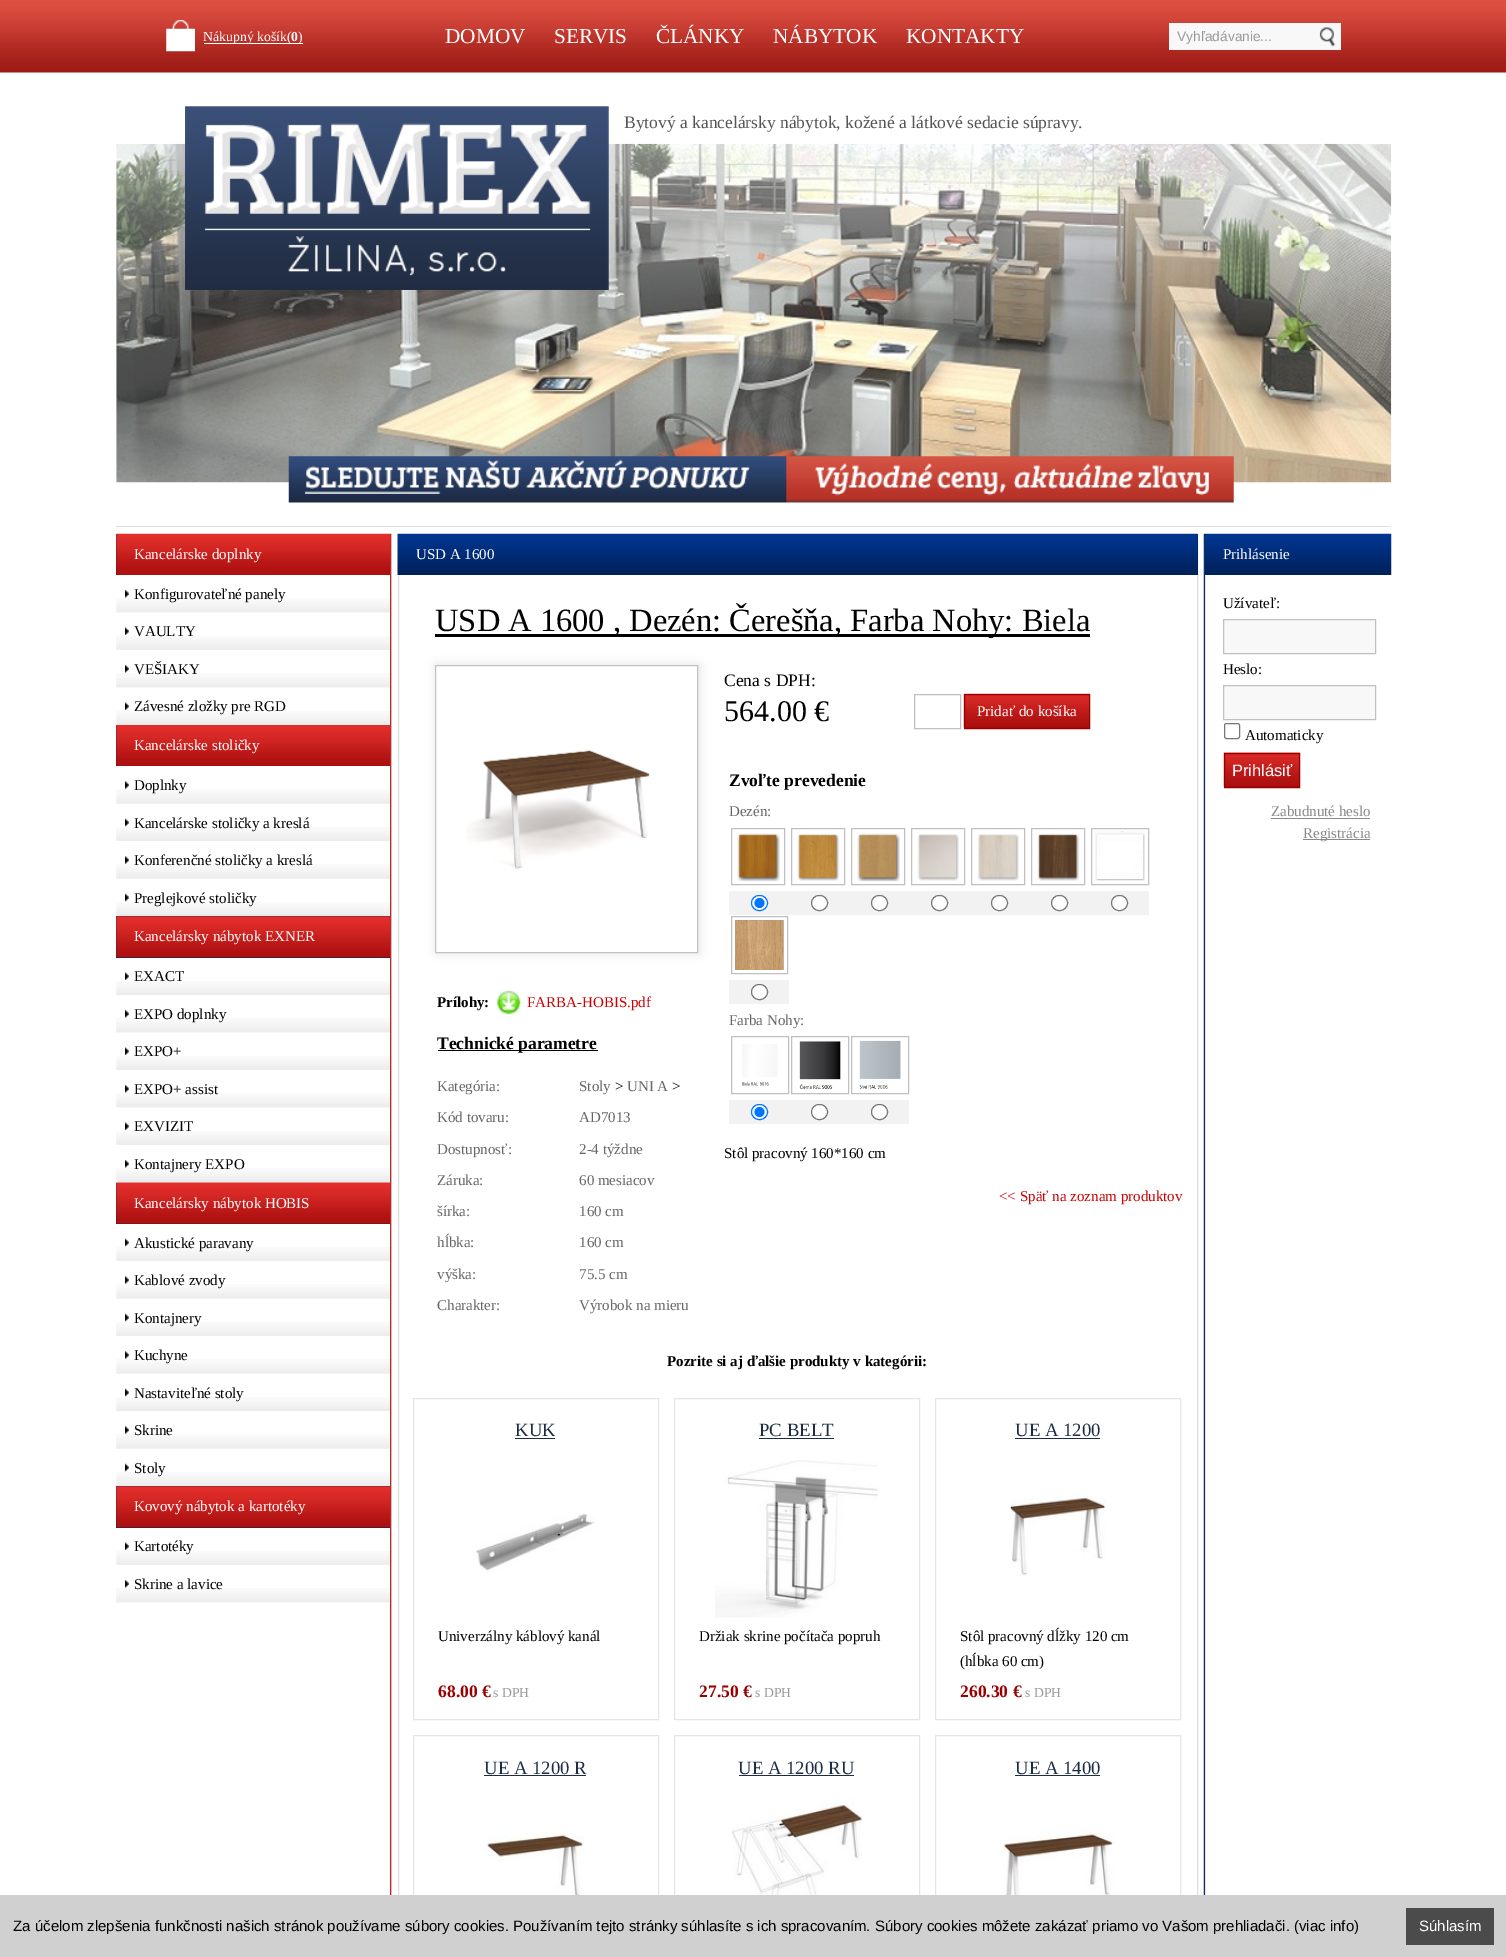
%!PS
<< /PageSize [1506 1957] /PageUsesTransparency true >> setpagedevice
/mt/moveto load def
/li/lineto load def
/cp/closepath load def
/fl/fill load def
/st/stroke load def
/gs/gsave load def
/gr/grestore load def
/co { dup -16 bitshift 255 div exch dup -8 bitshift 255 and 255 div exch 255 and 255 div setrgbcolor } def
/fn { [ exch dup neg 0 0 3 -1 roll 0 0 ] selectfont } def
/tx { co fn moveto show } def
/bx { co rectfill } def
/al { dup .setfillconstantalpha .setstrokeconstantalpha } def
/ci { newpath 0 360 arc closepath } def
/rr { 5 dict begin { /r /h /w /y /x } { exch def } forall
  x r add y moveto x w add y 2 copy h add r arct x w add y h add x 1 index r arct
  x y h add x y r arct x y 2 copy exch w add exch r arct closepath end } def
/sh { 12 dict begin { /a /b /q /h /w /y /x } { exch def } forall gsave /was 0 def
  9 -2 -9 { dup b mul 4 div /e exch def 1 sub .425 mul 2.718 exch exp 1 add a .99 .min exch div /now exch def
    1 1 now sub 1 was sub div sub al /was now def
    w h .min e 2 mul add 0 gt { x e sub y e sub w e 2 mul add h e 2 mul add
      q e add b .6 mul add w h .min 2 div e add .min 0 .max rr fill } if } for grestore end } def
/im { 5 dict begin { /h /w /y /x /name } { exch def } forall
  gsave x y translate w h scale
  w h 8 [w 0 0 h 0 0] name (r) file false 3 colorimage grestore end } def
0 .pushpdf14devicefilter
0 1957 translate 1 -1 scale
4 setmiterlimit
0 0 1506 1957 16#FFFFFF bx
(media/1.raw) 0 0 1506 73 im
(media/2.raw) 166 20 29 32 im
204 43 99 1 16#FFFFFF bx
1169 23 172 27 16#F8F8F8 bx
(media/3.raw) 1319 27 17 20 im
116 526 1275 1 16#DEDEDE bx
(media/5.raw) 116 143 1276 340 im
(media/4.raw) 185 106 424 184 im
(media/6.raw) 288 456 946 47 im
(media/7.raw) 389 533 817 1362 im
(media/8.raw) 116 533 274 42 im
389 575 1 150 16#FFFFFF bx
(media/9.raw) 116 598 274 15 im
(media/10.raw) 125 590 4 8 im
(media/11.raw) 116 636 274 14 im
(media/12.raw) 125 627 4 8 im
(media/9.raw) 116 673 274 15 im
(media/10.raw) 125 665 4 8 im
(media/11.raw) 116 711 274 14 im
(media/12.raw) 125 702 4 8 im
(media/13.raw) 116 725 274 41 im
389 766 1 150 16#FFFFFF bx
(media/14.raw) 116 789 274 15 im
(media/15.raw) 125 781 4 8 im
(media/16.raw) 116 827 274 14 im
(media/17.raw) 125 818 4 9 im
(media/14.raw) 116 864 274 15 im
(media/18.raw) 125 856 4 8 im
(media/16.raw) 116 902 274 14 im
(media/17.raw) 125 893 4 9 im
116 916 274 42 16#00215B bx
(media/19.raw) 116 916 274 42 im
389 958 1 225 16#FFFFFF bx
(media/11.raw) 116 981 274 14 im
(media/12.raw) 125 972 4 8 im
(media/9.raw) 116 1018 274 15 im
(media/10.raw) 125 1010 4 8 im
(media/11.raw) 116 1056 274 14 im
(media/12.raw) 125 1047 4 8 im
(media/9.raw) 116 1093 274 15 im
(media/10.raw) 125 1085 4 8 im
(media/11.raw) 116 1131 274 14 im
(media/12.raw) 125 1122 4 8 im
(media/9.raw) 116 1168 274 15 im
(media/10.raw) 125 1160 4 8 im
116 1183 274 41 16#00215B bx
(media/20.raw) 116 1182 274 42 im
389 1224 1 262 16#FFFFFF bx
(media/16.raw) 116 1247 274 14 im
(media/17.raw) 125 1238 4 9 im
(media/14.raw) 116 1284 274 15 im
(media/18.raw) 125 1276 4 8 im
(media/16.raw) 116 1322 274 14 im
(media/17.raw) 125 1313 4 9 im
(media/14.raw) 116 1359 274 15 im
(media/18.raw) 125 1351 4 8 im
(media/16.raw) 116 1397 274 14 im
(media/17.raw) 125 1388 4 9 im
(media/14.raw) 116 1434 274 15 im
(media/18.raw) 125 1426 4 8 im
(media/16.raw) 116 1472 274 14 im
(media/17.raw) 125 1463 4 9 im
116 1486 274 42 16#00215B bx
(media/19.raw) 116 1486 274 42 im
389 1528 1 75 16#FFFFFF bx
(media/11.raw) 116 1551 274 14 im
(media/12.raw) 125 1542 4 8 im
(media/9.raw) 116 1588 274 15 im
(media/10.raw) 125 1580 4 8 im
16#DEDEDE co
398.5 534.5 799 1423 rectstroke
1197 534 1 41 16#00215B bx
(media/21.raw) 397 533 801 42 im
435 634 655 3 16#000000 bx
gs
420 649 mt 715 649 li 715 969 li 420 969 li cp 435 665 mt 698 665 li 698 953 li 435 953 li cp eoclip newpath
16#E0E0E0 co
436 665 263 288 0 5 1 sh
gr
16#C2C2C2 co
435.5 665.5 262 287 rectstroke
(media/22.raw) 466 750 184 119 im
(media/23.raw) 496 990 26 25 im
438 1050 160 1 16#000000 bx
16#C0C0C0 co
914.5 694.5 46 34 rectstroke
965 727 124 1 16#AA0000 bx
(media/24.raw) 963 693 127 35 im
16#990000 co
964.5 694.5 125 34 rectstroke
16#C0C0C0 co
731.5 828.5 53 56 rectstroke
(media/25.raw) 737 833 43 49 im
729 891 420 24 16#F2F2F2 bx
16#FFFFFF co
751.5 895.5 16 15 7.5 rr gs fl gr
16#0075FF co
st
759.5 903 5 ci fl
16#C0C0C0 co
791.5 828.5 53 56 rectstroke
(media/26.raw) 797 834 43 47 im
16#FFFFFF co
811.5 895.5 16 15 7.5 rr gs fl gr
16#767676 co
st
16#C0C0C0 co
851.5 828.5 53 56 rectstroke
(media/27.raw) 857 833 43 49 im
16#FFFFFF co
871.5 895.5 16 15 7.5 rr gs fl gr
16#767676 co
st
16#C0C0C0 co
911.5 828.5 53 56 rectstroke
(media/28.raw) 917 834 42 47 im
16#FFFFFF co
931.5 895.5 16 15 7.5 rr gs fl gr
16#767676 co
st
16#C0C0C0 co
971.5 828.5 53 56 rectstroke
(media/29.raw) 977 834 42 47 im
16#FFFFFF co
991.5 895.5 16 15 7.5 rr gs fl gr
16#767676 co
st
16#C0C0C0 co
1031.5 828.5 53 56 rectstroke
(media/30.raw) 1037 834 43 47 im
16#FFFFFF co
1051.5 895.5 16 15 7.5 rr gs fl gr
16#767676 co
st
16#C0C0C0 co
1091.5 828.5 57 56 rectstroke
(media/31.raw) 1095 831 50 50 im
16#FFFFFF co
1111.5 895.5 16 15 7.5 rr gs fl gr
16#767676 co
st
16#C0C0C0 co
731.5 916.5 56 57 rectstroke
(media/32.raw) 735 920 49 50 im
729 980 60 24 16#F2F2F2 bx
16#FFFFFF co
751.5 984.5 16 15 7.5 rr gs fl gr
16#767676 co
st
16#C0C0C0 co
731.5 1036.5 57 57 rectstroke
(media/33.raw) 742 1044 36 42 im
729 1100 180 24 16#F2F2F2 bx
16#FFFFFF co
751.5 1104.5 16 15 7.5 rr gs fl gr
16#0075FF co
st
759.5 1112 5 ci fl
16#C0C0C0 co
791.5 1036.5 57 57 rectstroke
(media/34.raw) 799 1041 42 49 im
16#FFFFFF co
811.5 1104.5 16 15 7.5 rr gs fl gr
16#767676 co
st
16#C0C0C0 co
851.5 1036.5 57 57 rectstroke
(media/35.raw) 859 1040 42 49 im
16#FFFFFF co
871.5 1104.5 16 15 7.5 rr gs fl gr
16#767676 co
st
16#E5E5E5 co
413.5 1398.5 245 321 rectstroke
515 1438 40 1 16#1C2B46 bx
(media/36.raw) 475 1513 121 60 im
16#E5E5E5 co
674.5 1398.5 245 321 rectstroke
759 1438 75 1 16#1C2B46 bx
(media/37.raw) 715 1460 163 158 im
16#E5E5E5 co
935.5 1398.5 245 321 rectstroke
1015 1438 85 1 16#1C2B46 bx
(media/38.raw) 1009 1494 98 82 im
16#E5E5E5 co
413.5 1735.5 245 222 rectstroke
484 1775 102 1 16#1C2B46 bx
(media/39.raw) 484 1831 101 64 im
16#E5E5E5 co
674.5 1735.5 245 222 rectstroke
739 1775 115 1 16#1C2B46 bx
(media/40.raw) 731 1797 132 98 im
16#E5E5E5 co
935.5 1735.5 245 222 rectstroke
1015 1775 85 1 16#1C2B46 bx
(media/41.raw) 1003 1828 112 67 im
(media/42.raw) 1205 533 187 42 im
16#F8F8F8 co
1223.5 619.5 mt 1375.5 619.5 li 1375.5 653.5 li 1223.5 653.5 li cp gs fl gr
16#C0C0C0 co
st
16#F8F8F8 co
1223.5 685.5 mt 1375.5 685.5 li 1375.5 719.5 li 1223.5 719.5 li cp gs fl gr
16#C0C0C0 co
st
16#767676 co
1224.5 723.5 15 15 2 rr st
1225 786 74 1 16#AA0000 bx
(media/43.raw) 1223 752 77 35 im
16#990000 co
1224.5 753.5 75 34 rectstroke
1271 818 99 1 16#888888 bx
1303 839 67 1 16#888888 bx
0 1895 1506 62 16#D0D0D0 bx
1406 1908 88 37 16#4B4B4B bx
(Nákupný košík\() 203 41 /LiberationSerif-Regular 13.75 16#FFFFFF tx
(0) 291 41 /LiberationSerif-Bold 13.75 16#FFFFFF tx
(\)) 298 41 /LiberationSerif-Regular 13.75 16#FFFFFF tx
(DOMOV) 445 43 /LiberationSerif-Regular 21.25 16#FFFFFF tx
(SERVIS) 554 43 /LiberationSerif-Regular 21.25 16#FFFFFF tx
(ČLÁNKY) 656 43 /LiberationSerif-Regular 21.25 16#FFFFFF tx
(NÁBYTOK) 773 43 /LiberationSerif-Regular 21.25 16#FFFFFF tx
(KONTAKTY) 906 43 /LiberationSerif-Regular 21.25 16#FFFFFF tx
(Vyhľadávanie...) 1177 41 /LiberationSans-Regular 13.75 16#999999 tx
(Bytový a kancelársky nábytok, kožené a látkové sedacie súpravy.) 624 128 /LiberationSerif-Regular 17.5 16#555555 tx
(Kancelárske doplnky) 134 559 /LiberationSerif-Regular 15 16#FFFFFF tx
(Konfigurovateľné panely) 134 599 /LiberationSerif-Regular 15 16#000000 tx
(VAULTY) 134 636 /LiberationSerif-Regular 15 16#000000 tx
(VEŠIAKY) 134 674 /LiberationSerif-Regular 15 16#000000 tx
(Závesné zložky pre RGD) 134 711 /LiberationSerif-Regular 15 16#000000 tx
(Kancelárske stoličky) 134 750 /LiberationSerif-Regular 15 16#FFFFFF tx
(Doplnky) 134 790 /LiberationSerif-Regular 15 16#000000 tx
(Kancelárske stoličky a kreslá) 134 828 /LiberationSerif-Regular 15 16#000000 tx
(Konferenčné stoličky a kreslá) 134 865 /LiberationSerif-Regular 15 16#000000 tx
(Preglejkové stoličky) 134 903 /LiberationSerif-Regular 15 16#000000 tx
(Kancelársky nábytok EXNER) 134 941 /LiberationSerif-Regular 15 16#FFFFFF tx
(EXACT) 134 981 /LiberationSerif-Regular 15 16#000000 tx
(EXPO doplnky) 134 1019 /LiberationSerif-Regular 15 16#000000 tx
(EXPO+) 134 1056 /LiberationSerif-Regular 15 16#000000 tx
(EXPO+ assist) 134 1094 /LiberationSerif-Regular 15 16#000000 tx
(EXVIZIT) 134 1131 /LiberationSerif-Regular 15 16#000000 tx
(Kontajnery EXPO) 134 1169 /LiberationSerif-Regular 15 16#000000 tx
(Kancelársky nábytok HOBIS) 134 1208 /LiberationSerif-Regular 15 16#FFFFFF tx
(Akustické paravany) 134 1248 /LiberationSerif-Regular 15 16#000000 tx
(Kablové zvody) 134 1285 /LiberationSerif-Regular 15 16#000000 tx
(Kontajnery) 134 1323 /LiberationSerif-Regular 15 16#000000 tx
(Kuchyne) 134 1360 /LiberationSerif-Regular 15 16#000000 tx
(Nastaviteľné stoly) 134 1398 /LiberationSerif-Regular 15 16#000000 tx
(Skrine) 134 1435 /LiberationSerif-Regular 15 16#000000 tx
(Stoly) 134 1473 /LiberationSerif-Regular 15 16#000000 tx
(Kovový nábytok a kartotéky) 134 1511 /LiberationSerif-Regular 15 16#FFFFFF tx
(Kartotéky) 134 1551 /LiberationSerif-Regular 15 16#000000 tx
(Skrine a lavice) 134 1589 /LiberationSerif-Regular 15 16#000000 tx
(USD A 1600) 416 559 /LiberationSerif-Regular 15 16#FFFFFF tx
(USD A 1600 , Dezén: Čerešňa, Farba Nohy: Biela) 435 631 /LiberationSerif-Regular 32.5 16#000000 tx
(Prílohy:) 437 1007 /LiberationSerif-Bold 15 16#000000 tx
(FARBA-HOBIS.pdf) 527 1007 /LiberationSerif-Regular 15 16#CC0000 tx
(Technické parametre) 437 1049 /LiberationSerif-Bold 17.5 16#000000 tx
(Kategória:) 437 1091 /LiberationSerif-Regular 15 16#666666 tx
(Stoly) 579 1091 /LiberationSerif-Regular 15 16#666666 tx
(>) 615 1091 /LiberationSerif-Regular 15 16#000000 tx
(UNI A) 627 1091 /LiberationSerif-Regular 15 16#666666 tx
(>) 672 1091 /LiberationSerif-Regular 15 16#000000 tx
(Kód tovaru:) 437 1122 /LiberationSerif-Regular 15 16#666666 tx
(AD7013) 579 1122 /LiberationSerif-Regular 15 16#666666 tx
(Dostupnosť:) 437 1154 /LiberationSerif-Regular 15 16#666666 tx
(2-4 týždne) 579 1154 /LiberationSerif-Regular 15 16#666666 tx
(Záruka:) 437 1185 /LiberationSerif-Regular 15 16#666666 tx
(60 mesiacov) 579 1185 /LiberationSerif-Regular 15 16#666666 tx
(šírka:) 437 1216 /LiberationSerif-Regular 15 16#666666 tx
(160 cm) 579 1216 /LiberationSerif-Regular 15 16#666666 tx
(hĺbka:) 437 1247 /LiberationSerif-Regular 15 16#666666 tx
(160 cm) 579 1247 /LiberationSerif-Regular 15 16#666666 tx
(výška:) 437 1279 /LiberationSerif-Regular 15 16#666666 tx
(75.5 cm) 579 1279 /LiberationSerif-Regular 15 16#666666 tx
(Charakter:) 437 1310 /LiberationSerif-Regular 15 16#666666 tx
(Výrobok na mieru) 579 1310 /LiberationSerif-Regular 15 16#666666 tx
(Cena s DPH:) 724 686 /LiberationSerif-Regular 17.5 16#000000 tx
(564.00 €) 724 721 /LiberationSerif-Regular 30 16#000000 tx
(Pridať do košíka) 977 716 /LiberationSerif-Regular 15 16#FFFFFF tx
(Zvoľte prevedenie) 729 786 /LiberationSerif-Bold 17.5 16#000000 tx
(Dezén:) 729 816 /LiberationSerif-Regular 15 16#666666 tx
(Farba Nohy:) 729 1025 /LiberationSerif-Regular 15 16#666666 tx
(Stôl pracovný 160*160 cm) 724 1158 /LiberationSerif-Regular 15 16#000000 tx
(<< Späť na zoznam produktov) 999 1201 /LiberationSerif-Regular 15 16#CC0000 tx
(Pozrite si aj ďalšie produkty v kategórii:) 667 1366 /LiberationSerif-Bold 15 16#000000 tx
(KUK) 515 1436 /LiberationSerif-Regular 18.75 16#1C2B46 tx
(Univerzálny káblový kanál) 438 1641 /LiberationSerif-Regular 15 16#000000 tx
(68.00 €) 438 1697 /LiberationSerif-Bold 17.5 16#990000 tx
(s DPH) 493 1697 /LiberationSerif-Regular 13.75 16#999999 tx
(PC BELT) 759 1436 /LiberationSerif-Regular 18.75 16#1C2B46 tx
(Držiak skrine počítača popruh) 699 1641 /LiberationSerif-Regular 15 16#000000 tx
(27.50 €) 699 1697 /LiberationSerif-Bold 17.5 16#990000 tx
(s DPH) 755 1697 /LiberationSerif-Regular 13.75 16#999999 tx
(UE A 1200) 1015 1436 /LiberationSerif-Regular 18.75 16#1C2B46 tx
(Stôl pracovný dĺžky 120 cm) 960 1641 /LiberationSerif-Regular 15 16#000000 tx
(\(hĺbka 60 cm\)) 960 1666 /LiberationSerif-Regular 15 16#000000 tx
(260.30 €) 960 1697 /LiberationSerif-Bold 17.5 16#990000 tx
(s DPH) 1025 1697 /LiberationSerif-Regular 13.75 16#999999 tx
(UE A 1200 R) 484 1774 /LiberationSerif-Regular 18.75 16#1C2B46 tx
(UE A 1200 RU) 738 1774 /LiberationSerif-Regular 18.75 16#1C2B46 tx
(UE A 1400) 1015 1774 /LiberationSerif-Regular 18.75 16#1C2B46 tx
(Prihlásenie) 1223 559 /LiberationSerif-Regular 15 16#FFFFFF tx
(Užívateľ:) 1223 608 /LiberationSerif-Regular 15 16#000000 tx
(Heslo:) 1223 674 /LiberationSerif-Regular 15 16#000000 tx
(Automaticky) 1245 740 /LiberationSerif-Regular 15 16#000000 tx
(Prihlásiť) 1232 776 /LiberationSans-Regular 16.5 16#FFFFFF tx
(Zabudnuté heslo) 1271 816 /LiberationSerif-Regular 15 16#888888 tx
(Registrácia) 1303 838 /LiberationSerif-Regular 15 16#888888 tx
(Za účelom zlepšenia funkčnosti našich stránok používame súbory cookies. Používaním tejto stránky súhlasíte s ich spracovaním. Súbory cookies môžete zakázať priamo vo Vašom prehliadači. \(viac info\)) 13 1931 /LiberationSans-Regular 15 16#000000 tx
(Súhlasím) 1419 1931 /LiberationSans-Regular 15 16#FFFFFF tx
.poppdf14devicefilter showpage
